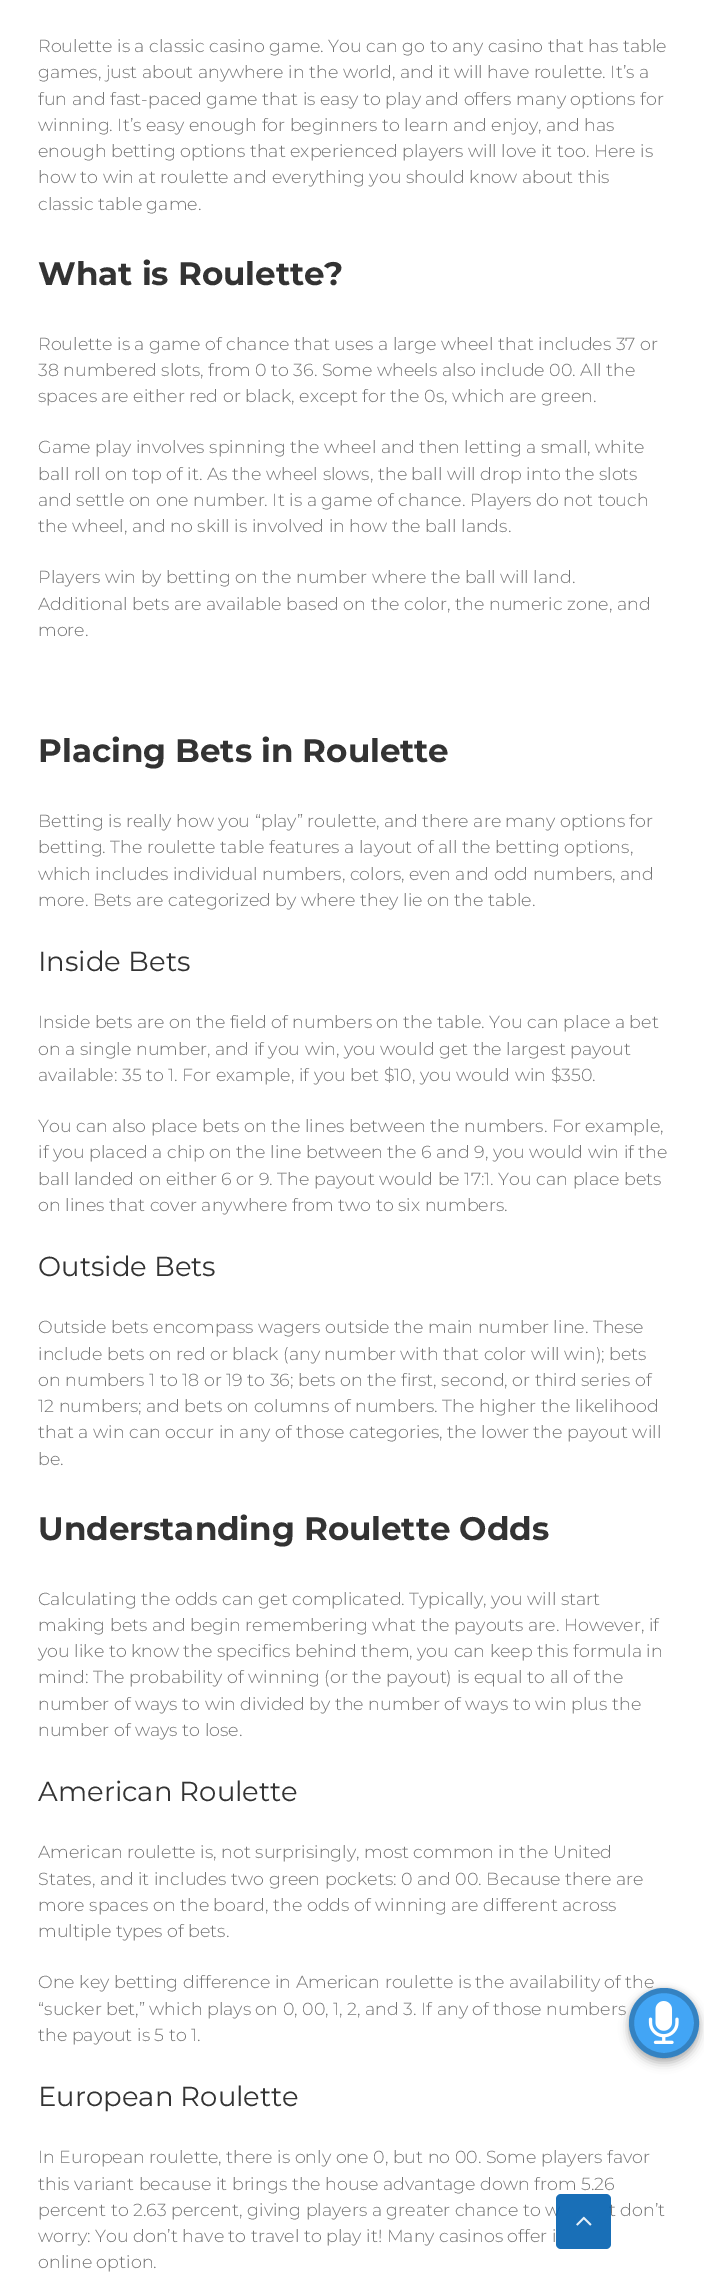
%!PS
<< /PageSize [704 2286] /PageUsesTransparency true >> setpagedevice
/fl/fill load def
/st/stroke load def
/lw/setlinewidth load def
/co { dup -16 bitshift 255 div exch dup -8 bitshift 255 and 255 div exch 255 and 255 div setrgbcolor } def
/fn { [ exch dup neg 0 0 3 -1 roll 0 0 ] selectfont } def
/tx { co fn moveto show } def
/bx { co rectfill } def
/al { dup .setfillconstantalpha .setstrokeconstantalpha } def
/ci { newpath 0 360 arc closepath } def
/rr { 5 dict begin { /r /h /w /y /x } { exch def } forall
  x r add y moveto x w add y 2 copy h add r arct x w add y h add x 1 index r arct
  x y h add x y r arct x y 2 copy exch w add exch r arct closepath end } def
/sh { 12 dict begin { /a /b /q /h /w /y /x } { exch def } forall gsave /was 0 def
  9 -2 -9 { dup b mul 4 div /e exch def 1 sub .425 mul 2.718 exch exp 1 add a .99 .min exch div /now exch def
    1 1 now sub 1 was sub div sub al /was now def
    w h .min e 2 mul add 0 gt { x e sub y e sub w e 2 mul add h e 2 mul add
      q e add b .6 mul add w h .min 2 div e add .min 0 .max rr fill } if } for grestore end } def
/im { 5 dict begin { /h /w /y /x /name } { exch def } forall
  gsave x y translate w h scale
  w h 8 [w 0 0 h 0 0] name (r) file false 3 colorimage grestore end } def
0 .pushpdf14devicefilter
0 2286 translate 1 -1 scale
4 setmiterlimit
0 0 704 2286 16#FFFFFF bx
16#000000 co
629 1993 70 70 35 5 .28 sh
629 1988 70 70 35 2.5 .14 sh
(Roulette is a classic casino game. You can go to any casino that has table) 38 52 /Montserrat-Light 17.5 16#747474 tx
(games, just about anywhere in the world, and it will have roulette. It’s a) 38 78 /Montserrat-Light 17.5 16#747474 tx
(fun and fast-paced game that is easy to play and offers many options for) 38 105 /Montserrat-Light 17.5 16#747474 tx
(winning. It’s easy enough for beginners to learn and enjoy, and has) 38 131 /Montserrat-Light 17.5 16#747474 tx
(enough betting options that experienced players will love it too. Here is) 38 157 /Montserrat-Light 17.5 16#747474 tx
(how to win at roulette and everything you should know about this) 38 183 /Montserrat-Light 17.5 16#747474 tx
(classic table game.) 38 210 /Montserrat-Light 17.5 16#747474 tx
(What is Roulette?) 38 285 /Montserrat-Bold 32.5 16#333333 tx
(Roulette is a game of chance that uses a large wheel that includes 37 or) 38 350 /Montserrat-Light 17.5 16#747474 tx
(38 numbered slots, from 0 to 36. Some wheels also include 00. All the) 38 376 /Montserrat-Light 17.5 16#747474 tx
(spaces are either red or black, except for the 0s, which are green.) 38 402 /Montserrat-Light 17.5 16#747474 tx
(Game play involves spinning the wheel and then letting a small, white) 38 453 /Montserrat-Light 17.5 16#747474 tx
(ball roll on top of it. As the wheel slows, the ball will drop into the slots) 38 480 /Montserrat-Light 17.5 16#747474 tx
(and settle on one number. It is a game of chance. Players do not touch) 38 506 /Montserrat-Light 17.5 16#747474 tx
(the wheel, and no skill is involved in how the ball lands.) 38 532 /Montserrat-Light 17.5 16#747474 tx
(Players win by betting on the number where the ball will land.) 38 583 /Montserrat-Light 17.5 16#747474 tx
(Additional bets are available based on the color, the numeric zone, and) 38 610 /Montserrat-Light 17.5 16#747474 tx
(more.) 38 636 /Montserrat-Light 17.5 16#747474 tx
(Placing Bets in Roulette) 38 762 /Montserrat-Bold 32.5 16#333333 tx
(Betting is really how you “play” roulette, and there are many options for) 38 827 /Montserrat-Light 17.5 16#747474 tx
(betting. The roulette table features a layout of all the betting options,) 38 853 /Montserrat-Light 17.5 16#747474 tx
(which includes individual numbers, colors, even and odd numbers, and) 38 880 /Montserrat-Light 17.5 16#747474 tx
(more. Bets are categorized by where they lie on the table.) 38 906 /Montserrat-Light 17.5 16#747474 tx
(Inside Bets) 38 971 /Montserrat-Regular 27.5 16#333333 tx
(Inside bets are on the field of numbers on the table. You can place a bet) 38 1028 /Montserrat-Light 17.5 16#747474 tx
(on a single number, and if you win, you would get the largest payout) 38 1055 /Montserrat-Light 17.5 16#747474 tx
(available: 35 to 1. For example, if you bet $10, you would win $350.) 38 1081 /Montserrat-Light 17.5 16#747474 tx
(You can also place bets on the lines between the numbers. For example,) 38 1132 /Montserrat-Light 17.5 16#747474 tx
(if you placed a chip on the line between the 6 and 9, you would win if the) 38 1158 /Montserrat-Light 17.5 16#747474 tx
(ball landed on either 6 or 9. The payout would be 17:1. You can place bets) 38 1185 /Montserrat-Light 17.5 16#747474 tx
(on lines that cover anywhere from two to six numbers.) 38 1211 /Montserrat-Light 17.5 16#747474 tx
(Outside Bets) 38 1276 /Montserrat-Regular 27.5 16#333333 tx
(Outside bets encompass wagers outside the main number line. These) 38 1333 /Montserrat-Light 17.5 16#747474 tx
(include bets on red or black \(any number with that color will win\); bets) 38 1360 /Montserrat-Light 17.5 16#747474 tx
(on numbers 1 to 18 or 19 to 36; bets on the first, second, or third series of) 38 1386 /Montserrat-Light 17.5 16#747474 tx
(12 numbers; and bets on columns of numbers. The higher the likelihood) 38 1412 /Montserrat-Light 17.5 16#747474 tx
(that a win can occur in any of those categories, the lower the payout will) 38 1438 /Montserrat-Light 17.5 16#747474 tx
(be.) 38 1465 /Montserrat-Light 17.5 16#747474 tx
(Understanding Roulette Odds) 38 1540 /Montserrat-Bold 32.5 16#333333 tx
(Calculating the odds can get complicated. Typically, you will start) 38 1605 /Montserrat-Light 17.5 16#747474 tx
(making bets and begin remembering what the payouts are. However, if) 38 1631 /Montserrat-Light 17.5 16#747474 tx
(you like to know the specifics behind them, you can keep this formula in) 38 1657 /Montserrat-Light 17.5 16#747474 tx
(mind: The probability of winning \(or the payout\) is equal to all of the) 38 1683 /Montserrat-Light 17.5 16#747474 tx
(number of ways to win divided by the number of ways to win plus the) 38 1710 /Montserrat-Light 17.5 16#747474 tx
(number of ways to lose.) 38 1736 /Montserrat-Light 17.5 16#747474 tx
(American Roulette) 38 1801 /Montserrat-Regular 27.5 16#333333 tx
(American roulette is, not surprisingly, most common in the United) 38 1858 /Montserrat-Light 17.5 16#747474 tx
(States, and it includes two green pockets: 0 and 00. Because there are) 38 1885 /Montserrat-Light 17.5 16#747474 tx
(more spaces on the board, the odds of winning are different across) 38 1911 /Montserrat-Light 17.5 16#747474 tx
(multiple types of bets.) 38 1937 /Montserrat-Light 17.5 16#747474 tx
(One key betting difference in American roulette is the availability of the) 38 1988 /Montserrat-Light 17.5 16#747474 tx
(“sucker bet,” which plays on 0, 00, 1, 2, and 3. If any of those numbers) 38 2015 /Montserrat-Light 17.5 16#747474 tx
(the payout is 5 to 1.) 38 2041 /Montserrat-Light 17.5 16#747474 tx
(European Roulette) 38 2106 /Montserrat-Regular 27.5 16#333333 tx
(In European roulette, there is only one 0, but no 00. Some players favor) 38 2163 /Montserrat-Light 17.5 16#747474 tx
(this variant because it brings the house advantage down from 5.26) 38 2190 /Montserrat-Light 17.5 16#747474 tx
(percent to 2.63 percent, giving players a greater chance to w) 38 2216 /Montserrat-Light 17.5 16#747474 tx
(t don’t) 609 2216 /Montserrat-Light 17.5 16#747474 tx
(worry: You don’t have to travel to play it! Many casinos offer i) 38 2242 /Montserrat-Light 17.5 16#747474 tx
(online option.) 38 2268 /Montserrat-Light 17.5 16#747474 tx
16#42A5F5 co
664 2023 35 ci fl
0.21 al
16#000000 co
5 lw
664 2023 32.5 ci st
1 al
(media/1.raw) 648 2001 31 43 im
0.9 al
16#005FAF co
556 2194 55 55 5 rr fl
1 al
(media/2.raw) 576 2216 16 10 im
.poppdf14devicefilter showpage
